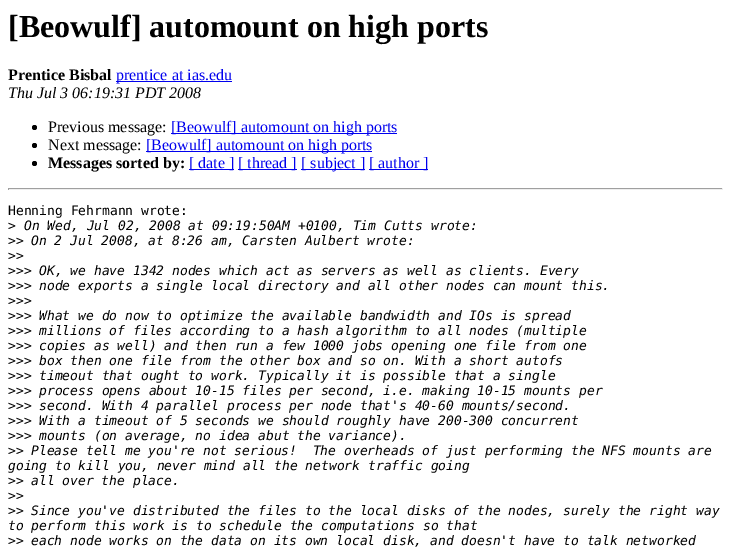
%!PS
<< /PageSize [731 552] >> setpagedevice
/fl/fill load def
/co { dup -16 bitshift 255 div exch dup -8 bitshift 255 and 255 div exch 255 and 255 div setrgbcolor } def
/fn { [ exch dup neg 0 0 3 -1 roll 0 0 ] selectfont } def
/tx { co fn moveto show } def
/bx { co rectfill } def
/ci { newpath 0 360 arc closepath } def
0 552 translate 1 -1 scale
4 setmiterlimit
0 0 731 552 16#FFFFFF bx
116 81 116 1 16#0000EE bx
16#000000 co
34.5 127.5 2.5 ci fl
171 133 226 1 16#0000EE bx
16#000000 co
34.5 145.5 2.5 ci fl
146 151 226 1 16#0000EE bx
16#000000 co
34.5 163.5 2.5 ci fl
189 169 45 1 16#0000EE bx
238 169 59 1 16#0000EE bx
301 169 64 1 16#0000EE bx
369 169 59 1 16#0000EE bx
8 188 715 1 16#9F9F9F bx
722 188 1 2 16#EEEEEE bx
8 189 715 1 16#EEEEEE bx
8 188 1 2 16#9F9F9F bx
([Beowulf] automount on high ports) 8 37 /LiberationSerif-Bold 32 16#000000 tx
(Prentice Bisbal) 8 80 /LiberationSerif-Bold 16 16#000000 tx
(prentice at ias.edu) 116 80 /LiberationSerif-Regular 16 16#0000EE tx
(Thu Jul 3 06:19:31 PDT 2008) 8 98 /LiberationSerif-Italic 16 16#000000 tx
(Previous message:) 48 132 /LiberationSerif-Regular 16 16#000000 tx
([Beowulf] automount on high ports) 171 132 /LiberationSerif-Regular 16 16#0000EE tx
(Next message:) 48 150 /LiberationSerif-Regular 16 16#000000 tx
([Beowulf] automount on high ports) 146 150 /LiberationSerif-Regular 16 16#0000EE tx
(Messages sorted by:) 48 168 /LiberationSerif-Bold 16 16#000000 tx
([ date ]) 189 168 /LiberationSerif-Regular 16 16#0000EE tx
([ thread ]) 238 168 /LiberationSerif-Regular 16 16#0000EE tx
([ subject ]) 301 168 /LiberationSerif-Regular 16 16#0000EE tx
([ author ]) 369 168 /LiberationSerif-Regular 16 16#0000EE tx
(Henning Fehrmann wrote:) 8 215 /DejaVuSansMono-Regular 13 16#000000 tx
(>) 8 230 /DejaVuSansMono-Regular 13 16#000000 tx
(On Wed, Jul 02, 2008 at 09:19:50AM +0100, Tim Cutts wrote:) 24 230 /DejaVuSansMono-Italic 13 16#000000 tx
(>>) 8 245 /DejaVuSansMono-Regular 13 16#000000 tx
(On 2 Jul 2008, at 8:26 am, Carsten Aulbert wrote:) 31 245 /DejaVuSansMono-Italic 13 16#000000 tx
(>>) 8 260 /DejaVuSansMono-Regular 13 16#000000 tx
(>>>) 8 275 /DejaVuSansMono-Regular 13 16#000000 tx
(OK, we have 1342 nodes which act as servers as well as clients. Every) 39 275 /DejaVuSansMono-Italic 13 16#000000 tx
(>>>) 8 290 /DejaVuSansMono-Regular 13 16#000000 tx
(node exports a single local directory and all other nodes can mount this.) 39 290 /DejaVuSansMono-Italic 13 16#000000 tx
(>>>) 8 305 /DejaVuSansMono-Regular 13 16#000000 tx
(>>>) 8 320 /DejaVuSansMono-Regular 13 16#000000 tx
(What we do now to optimize the available bandwidth and IOs is spread) 39 320 /DejaVuSansMono-Italic 13 16#000000 tx
(>>>) 8 335 /DejaVuSansMono-Regular 13 16#000000 tx
(millions of files according to a hash algorithm to all nodes \(multiple) 39 335 /DejaVuSansMono-Italic 13 16#000000 tx
(>>>) 8 350 /DejaVuSansMono-Regular 13 16#000000 tx
(copies as well\) and then run a few 1000 jobs opening one file from one) 39 350 /DejaVuSansMono-Italic 13 16#000000 tx
(>>>) 8 365 /DejaVuSansMono-Regular 13 16#000000 tx
(box then one file from the other box and so on. With a short autofs) 39 365 /DejaVuSansMono-Italic 13 16#000000 tx
(>>>) 8 380 /DejaVuSansMono-Regular 13 16#000000 tx
(timeout that ought to work. Typically it is possible that a single) 39 380 /DejaVuSansMono-Italic 13 16#000000 tx
(>>>) 8 395 /DejaVuSansMono-Regular 13 16#000000 tx
(process opens about 10-15 files per second, i.e. making 10-15 mounts per) 39 395 /DejaVuSansMono-Italic 13 16#000000 tx
(>>>) 8 410 /DejaVuSansMono-Regular 13 16#000000 tx
(second. With 4 parallel process per node that's 40-60 mounts/second.) 39 410 /DejaVuSansMono-Italic 13 16#000000 tx
(>>>) 8 425 /DejaVuSansMono-Regular 13 16#000000 tx
(With a timeout of 5 seconds we should roughly have 200-300 concurrent) 39 425 /DejaVuSansMono-Italic 13 16#000000 tx
(>>>) 8 440 /DejaVuSansMono-Regular 13 16#000000 tx
(mounts \(on average, no idea abut the variance\).) 39 440 /DejaVuSansMono-Italic 13 16#000000 tx
(>>) 8 455 /DejaVuSansMono-Regular 13 16#000000 tx
(Please tell me you're not serious!  The overheads of just performing the NFS mounts are) 31 455 /DejaVuSansMono-Italic 13 16#000000 tx
(going to kill you, never mind all the network traffic going) 8 470 /DejaVuSansMono-Italic 13 16#000000 tx
(>>) 8 485 /DejaVuSansMono-Regular 13 16#000000 tx
(all over the place.) 31 485 /DejaVuSansMono-Italic 13 16#000000 tx
(>>) 8 500 /DejaVuSansMono-Regular 13 16#000000 tx
(>>) 8 515 /DejaVuSansMono-Regular 13 16#000000 tx
(Since you've distributed the files to the local disks of the nodes, surely the right way) 31 515 /DejaVuSansMono-Italic 13 16#000000 tx
(to perform this work is to schedule the computations so that) 8 530 /DejaVuSansMono-Italic 13 16#000000 tx
(>>) 8 545 /DejaVuSansMono-Regular 13 16#000000 tx
(each node works on the data on its own local disk, and doesn't have to talk networked) 31 545 /DejaVuSansMono-Italic 13 16#000000 tx
showpage
